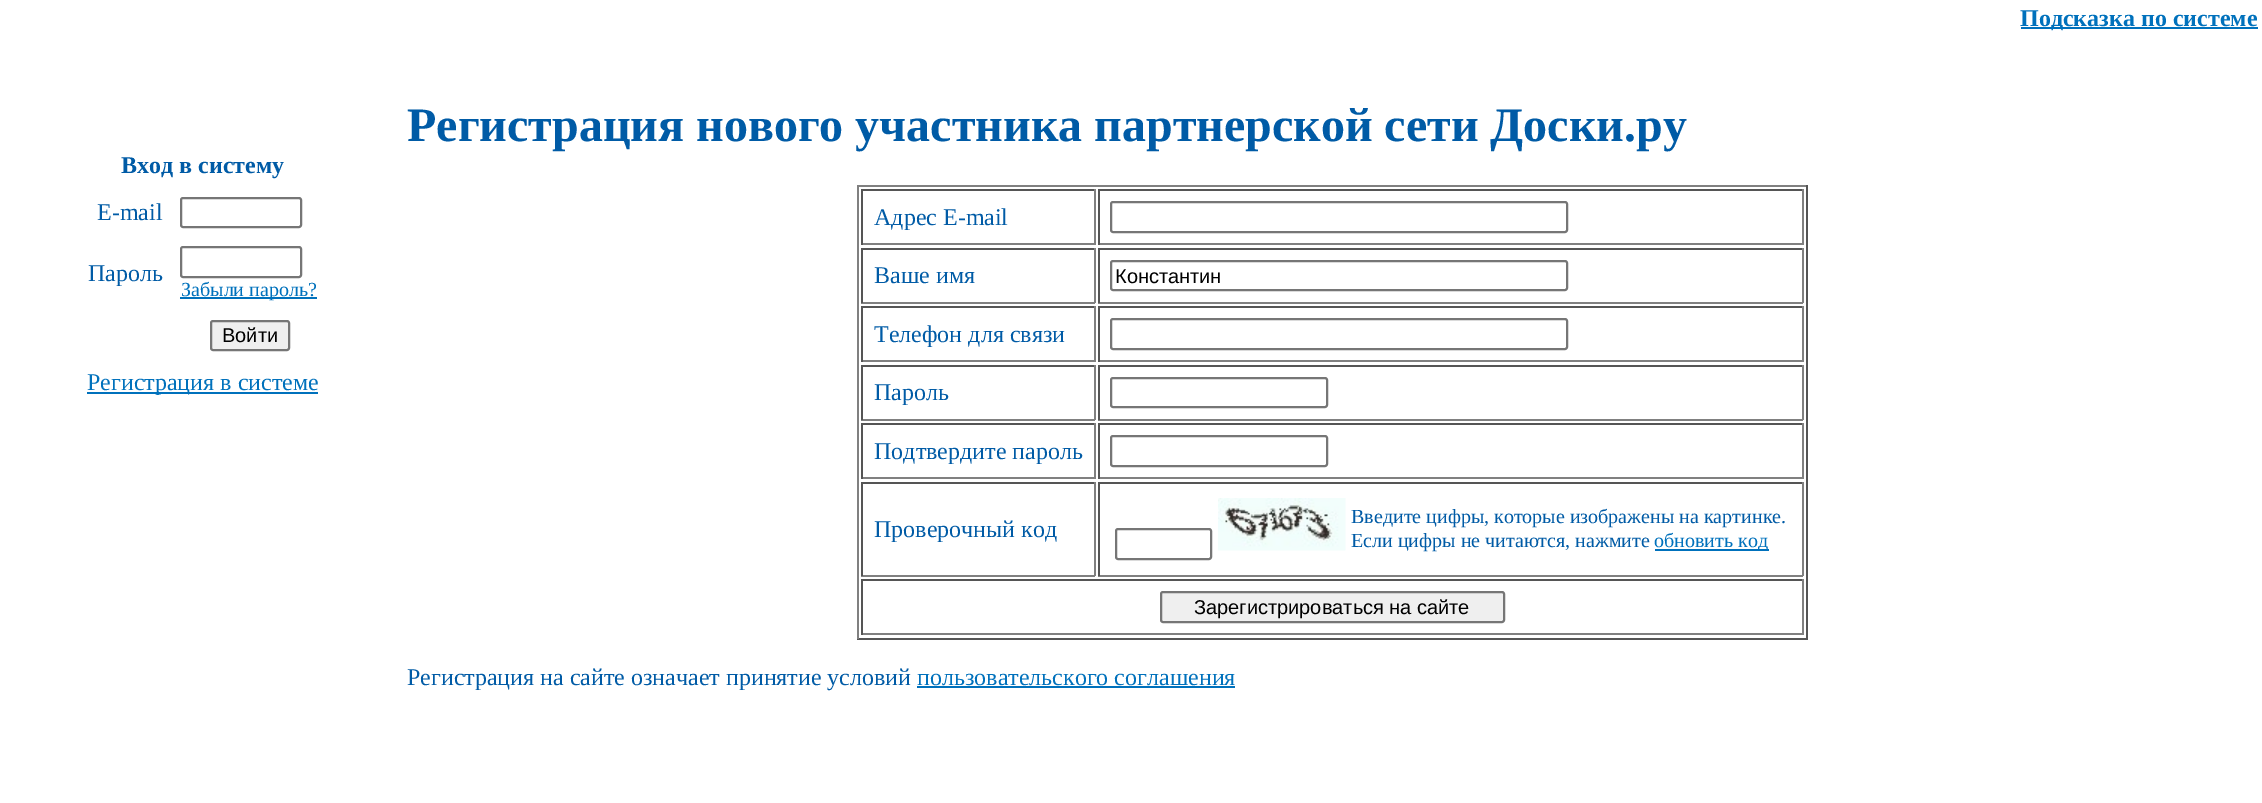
%!PS
<< /PageSize [2262 803] >> setpagedevice
/fl/fill load def
/st/stroke load def
/gs/gsave load def
/gr/grestore load def
/lw/setlinewidth load def
/co { dup -16 bitshift 255 div exch dup -8 bitshift 255 and 255 div exch 255 and 255 div setrgbcolor } def
/fn { [ exch dup neg 0 0 3 -1 roll 0 0 ] selectfont } def
/tx { co fn moveto show } def
/bx { co rectfill } def
/rr { 5 dict begin { /r /h /w /y /x } { exch def } forall
  x r add y moveto x w add y 2 copy h add r arct x w add y h add x 1 index r arct
  x y h add x y r arct x y 2 copy exch w add exch r arct closepath end } def
/im { 5 dict begin { /h /w /y /x /name } { exch def } forall
  gsave x y translate w h scale
  w h 8 [w 0 0 h 0 0] name (r) file false 3 colorimage grestore end } def
0 803 translate 1 -1 scale
4 setmiterlimit
0 0 2262 803 16#FFFFFF bx
2021 27 237 2 16#0071BC bx
16#767676 co
2 lw
181 198 120 29 2 rr st
181 247 120 30 2 rr st
180 297 137 2 16#0071BC bx
16#EFEFEF co
211 321 78 29 2 rr gs fl gr
16#767676 co
st
87 392 231 2 16#0071BC bx
857 185 951 2 16#808080 bx
1806 185 2 454 16#555555 bx
857 638 951 2 16#555555 bx
857 185 2 454 16#808080 bx
861 189 234 2 16#555555 bx
1094 189 2 56 16#808080 bx
861 243 234 2 16#808080 bx
861 189 2 56 16#555555 bx
1098 189 705 2 16#555555 bx
1802 189 2 56 16#808080 bx
1098 243 705 2 16#808080 bx
1098 189 2 56 16#555555 bx
16#767676 co
1111 202 456 30 2 rr st
861 248 234 2 16#555555 bx
1094 248 2 55 16#808080 bx
861 302 234 2 16#808080 bx
861 248 2 55 16#555555 bx
1098 248 705 2 16#555555 bx
1802 248 2 55 16#808080 bx
1098 302 705 2 16#808080 bx
1098 248 2 55 16#555555 bx
16#767676 co
1111 261 456 29 2 rr st
861 306 234 2 16#555555 bx
1094 306 2 56 16#808080 bx
861 360 234 2 16#808080 bx
861 306 2 56 16#555555 bx
1098 306 705 2 16#555555 bx
1802 306 2 56 16#808080 bx
1098 360 705 2 16#808080 bx
1098 306 2 56 16#555555 bx
16#767676 co
1111 319 456 30 2 rr st
861 365 234 2 16#555555 bx
1094 365 2 55 16#808080 bx
861 419 234 2 16#808080 bx
861 365 2 55 16#555555 bx
1098 365 705 2 16#555555 bx
1802 365 2 55 16#808080 bx
1098 419 705 2 16#808080 bx
1098 365 2 55 16#555555 bx
16#767676 co
1111 378 216 29 2 rr st
861 423 234 2 16#555555 bx
1094 423 2 56 16#808080 bx
861 477 234 2 16#808080 bx
861 423 2 56 16#555555 bx
1098 423 705 2 16#555555 bx
1802 423 2 56 16#808080 bx
1098 477 705 2 16#808080 bx
1098 423 2 56 16#555555 bx
16#767676 co
1111 436 216 30 2 rr st
861 482 234 2 16#555555 bx
1094 482 2 94 16#808080 bx
861 575 234 2 16#808080 bx
861 482 2 94 16#555555 bx
1098 482 705 2 16#555555 bx
1802 482 2 94 16#808080 bx
1098 575 705 2 16#808080 bx
1098 482 2 94 16#555555 bx
16#767676 co
1116 529 95 30 2 rr st
(media/1.raw) 1218 498 128 53 im
1655 549 114 2 16#0071BC bx
861 579 942 2 16#555555 bx
1802 579 2 56 16#808080 bx
861 633 942 2 16#808080 bx
861 579 2 56 16#555555 bx
16#EFEFEF co
1161 592 343 30 2 rr gs fl gr
16#767676 co
st
917 686 318 2 16#0071BC bx
(Подсказка по системе) 2020 26 /LiberationSerif-Bold 24 16#0071BC tx
(Вход в систему) 121 173 /LiberationSerif-Bold 24 16#005BA6 tx
(E-mail) 97 220 /LiberationSerif-Regular 24 16#005BA6 tx
(Пароль) 88 281 /LiberationSerif-Regular 24 16#005BA6 tx
(Забыли пароль?) 181 296 /LiberationSerif-Regular 20 16#0071BC tx
(Войти) 222 342 /LiberationSans-Regular 20 16#000000 tx
(Регистрация в системе) 87 390 /LiberationSerif-Regular 24 16#0071BC tx
(Регистрация нового участника партнерской сети Доски.ру) 407 141 /LiberationSerif-Bold 48 16#005BA6 tx
(Адрес E-mail) 874 225 /LiberationSerif-Regular 24 16#005BA6 tx
(Ваше имя) 874 283 /LiberationSerif-Regular 24 16#005BA6 tx
(Константин) 1115 283 /LiberationSans-Regular 20 16#000000 tx
(Телефон для связи) 874 342 /LiberationSerif-Regular 24 16#005BA6 tx
(Пароль) 874 400 /LiberationSerif-Regular 24 16#005BA6 tx
(Подтвердите пароль) 874 459 /LiberationSerif-Regular 24 16#005BA6 tx
(Проверочный код) 874 537 /LiberationSerif-Regular 24 16#005BA6 tx
(Введите цифры, которые изображены на картинке.) 1351 523 /LiberationSerif-Regular 20 16#005BA6 tx
(Если цифры не читаются, нажмите) 1351 547 /LiberationSerif-Regular 20 16#005BA6 tx
(обновить код) 1654 547 /LiberationSerif-Regular 20 16#0071BC tx
(Зарегистрироваться на сайте) 1194 614 /LiberationSans-Regular 20 16#000000 tx
(Регистрация на сайте означает принятие условий) 407 685 /LiberationSerif-Regular 24 16#005BA6 tx
(пользовательского соглашения) 917 685 /LiberationSerif-Regular 24 16#0071BC tx
showpage
